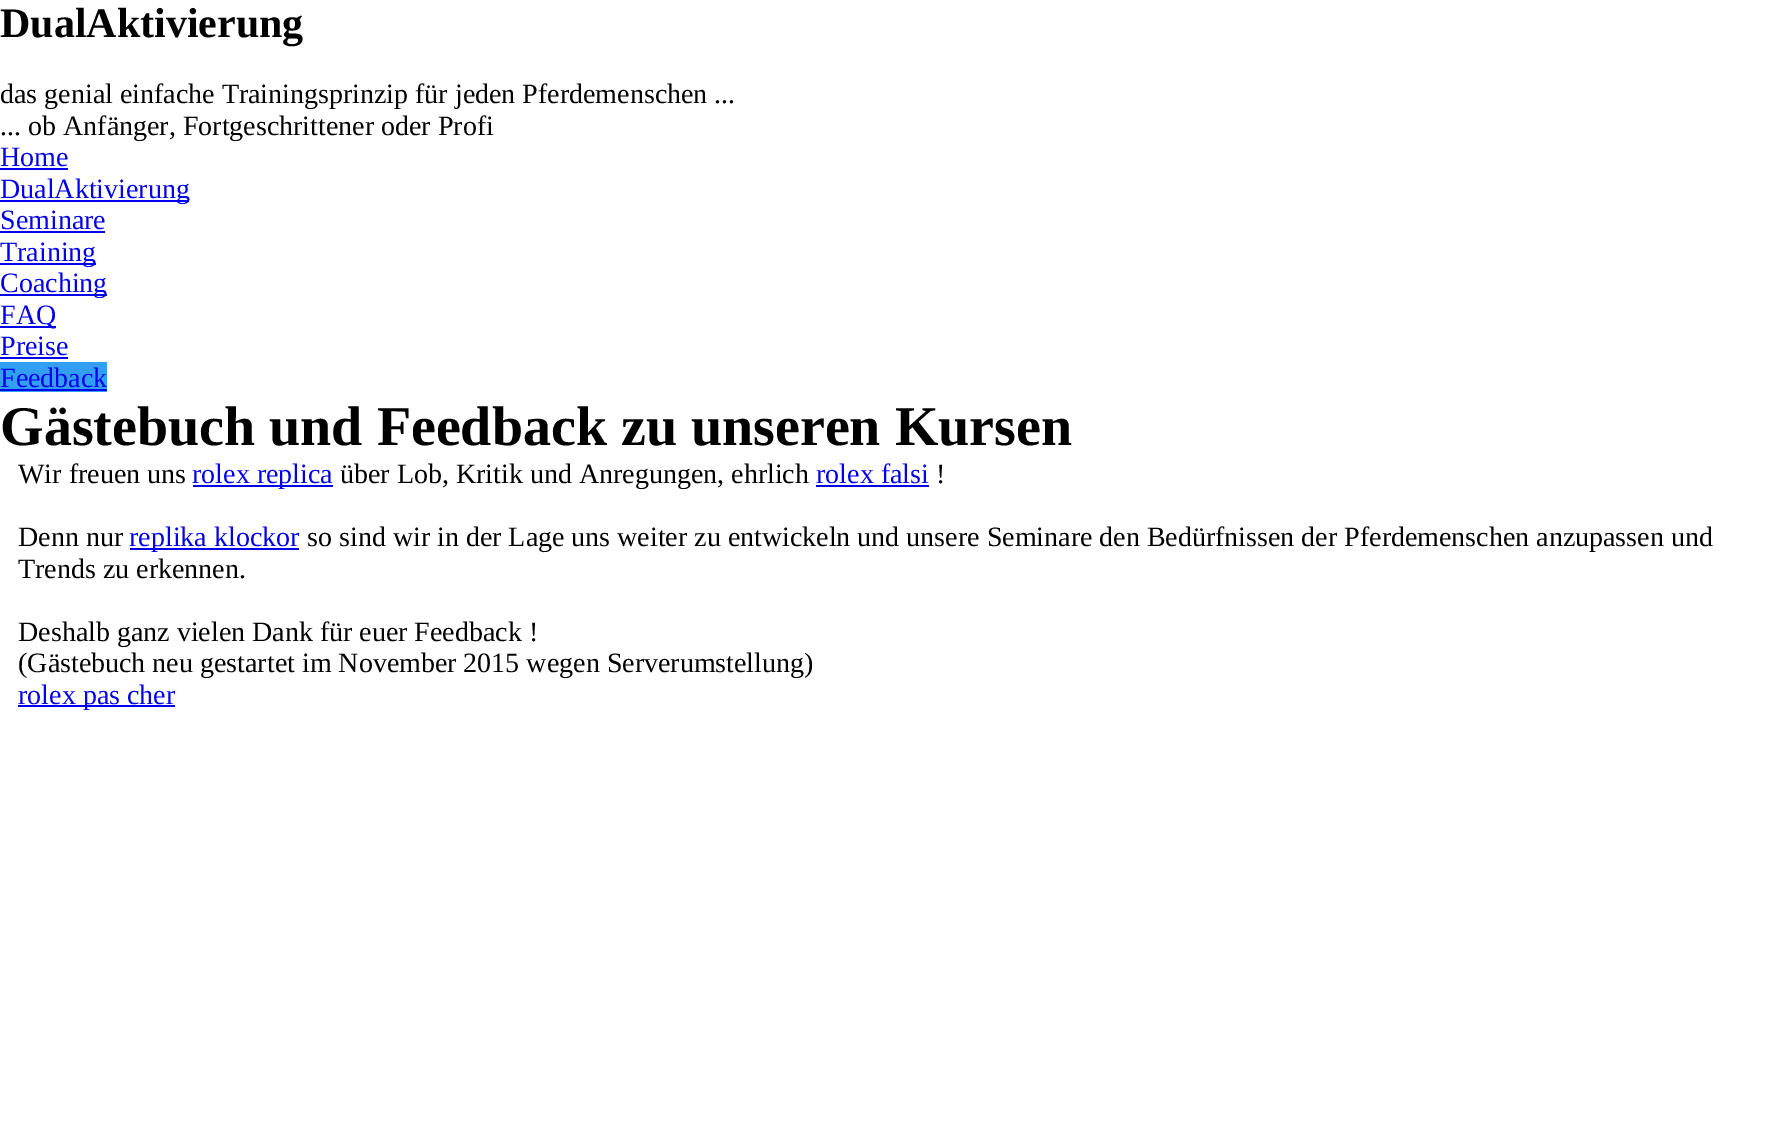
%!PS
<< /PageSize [1771 1128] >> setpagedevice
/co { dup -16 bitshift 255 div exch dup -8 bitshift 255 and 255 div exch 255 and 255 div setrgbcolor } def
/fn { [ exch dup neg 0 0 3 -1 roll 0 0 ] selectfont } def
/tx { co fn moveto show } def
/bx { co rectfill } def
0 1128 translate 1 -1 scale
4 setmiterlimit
0 0 1771 1128 16#FFFFFF bx
0 168 68 2 16#0000EE bx
0 200 189 2 16#0000EE bx
0 231 105 2 16#0000EE bx
0 263 96 2 16#0000EE bx
0 294 107 2 16#0000EE bx
0 326 56 2 16#0000EE bx
0 357 68 2 16#0000EE bx
0 362 107 30 16#339FF2 bx
0 389 107 2 16#0000EE bx
193 485 140 2 16#0000EE bx
816 485 113 2 16#0000EE bx
130 548 169 2 16#0000EE bx
18 705 157 2 16#0000EE bx
(DualAktivierung) 0 37 /LiberationSerif-Bold 42 16#000000 tx
(das genial einfache Trainingsprinzip für jeden Pferdemenschen ...) 0 103 /LiberationSerif-Regular 28 16#000000 tx
(... ob Anfänger, Fortgeschrittener oder Profi) 0 135 /LiberationSerif-Regular 28 16#000000 tx
(Home) 0 166 /LiberationSerif-Regular 28 16#0000EE tx
(DualAktivierung) 0 198 /LiberationSerif-Regular 28 16#0000EE tx
(Seminare) 0 229 /LiberationSerif-Regular 28 16#0000EE tx
(Training) 0 261 /LiberationSerif-Regular 28 16#0000EE tx
(Coaching) 0 292 /LiberationSerif-Regular 28 16#0000EE tx
(FAQ) 0 324 /LiberationSerif-Regular 28 16#0000EE tx
(Preise) 0 355 /LiberationSerif-Regular 28 16#0000EE tx
(Feedback) 0 387 /LiberationSerif-Regular 28 16#0000EE tx
(Gästebuch und Feedback zu unseren Kursen) 0 445 /LiberationSerif-Bold 56 16#000000 tx
(Wir freuen uns) 18 483 /LiberationSerif-Regular 28 16#000000 tx
(rolex replica) 192 483 /LiberationSerif-Regular 28 16#0000EE tx
(über Lob, Kritik und Anregungen, ehrlich) 340 483 /LiberationSerif-Regular 28 16#000000 tx
(rolex falsi) 816 483 /LiberationSerif-Regular 28 16#0000EE tx
(!) 936 483 /LiberationSerif-Regular 28 16#000000 tx
(Denn nur) 18 546 /LiberationSerif-Regular 28 16#000000 tx
(replika klockor) 129 546 /LiberationSerif-Regular 28 16#0000EE tx
(so sind wir in der Lage uns weiter zu entwickeln und unsere Seminare den Bedürfnissen der Pferdemenschen anzupassen und) 307 546 /LiberationSerif-Regular 28 16#000000 tx
(Trends zu erkennen.) 18 578 /LiberationSerif-Regular 28 16#000000 tx
(Deshalb ganz vielen Dank für euer Feedback !) 18 641 /LiberationSerif-Regular 28 16#000000 tx
(\(Gästebuch neu gestartet im November 2015 wegen Serverumstellung\)) 18 672 /LiberationSerif-Regular 28 16#000000 tx
(rolex pas cher) 18 704 /LiberationSerif-Regular 28 16#0000EE tx
showpage
